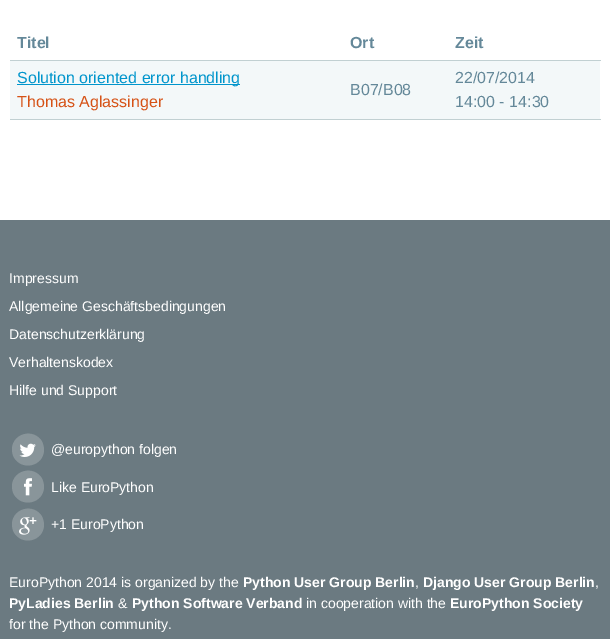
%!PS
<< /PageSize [610 639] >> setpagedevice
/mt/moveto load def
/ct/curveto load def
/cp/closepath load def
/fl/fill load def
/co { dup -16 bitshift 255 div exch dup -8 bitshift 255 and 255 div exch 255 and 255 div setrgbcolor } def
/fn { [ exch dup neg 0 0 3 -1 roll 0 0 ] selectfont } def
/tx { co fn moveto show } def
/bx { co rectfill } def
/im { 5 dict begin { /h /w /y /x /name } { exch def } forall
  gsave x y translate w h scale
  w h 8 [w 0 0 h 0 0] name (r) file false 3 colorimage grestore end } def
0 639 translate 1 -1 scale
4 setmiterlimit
0 0 610 639 16#FFFFFF bx
10 60 591 1 16#C1D0D2 bx
10 61 590 58 16#F3F8F9 bx
17 84 223 1 16#0095CC bx
10 119 591 1 16#C1D0D2 bx
0 220 610 419 16#6B7A81 bx
16#89959A co
42 441.5 mt 43.5 444.5 44 447.5 44 450.5 ct 43 466.5 22 471 14 457.5 ct 12.5 455 12 452 12 448.5 ct 13 433 34 428 42 441.5 ct cp fl
(media/1.raw) 19 443 17 14 im
42 478.5 mt 43.5 481.5 44 484.5 44 487.5 ct 43 503.5 22 508 14 494.5 ct 12.5 492 12 489 12 485.5 ct 13 470 34 465 42 478.5 ct cp fl
(media/2.raw) 24 478 8 18 im
42 516.5 mt 43.5 519.5 44 522.5 44 525.5 ct 43 541.5 22 546 14 532.5 ct 12.5 530 12 527 12 523.5 ct 13 508 34 503 42 516.5 ct cp fl
(media/3.raw) 19 517 18 18 im
(Titel) 17 48 /LiberationSans-Bold 16 16#648899 tx
(Ort) 350 48 /LiberationSans-Bold 16 16#648899 tx
(Zeit) 455 48 /LiberationSans-Bold 16 16#648899 tx
(Solution oriented error handling) 17 83 /LiberationSans-Regular 16 16#0095CC tx
(Thomas Aglassinger) 17 107 /LiberationSans-Regular 16 16#D65216 tx
(B07/B08) 350 95 /LiberationSans-Regular 16 16#648899 tx
(22/07/2014) 455 83 /LiberationSans-Regular 16 16#648899 tx
(14:00 - 14:30) 455 107 /LiberationSans-Regular 16 16#648899 tx
(Impressum) 9 283 /LiberationSans-Regular 14 16#FFFFFF tx
(Allgemeine Geschäftsbedingungen) 9 311 /LiberationSans-Regular 14 16#FFFFFF tx
(Datenschutzerklärung) 9 339 /LiberationSans-Regular 14 16#FFFFFF tx
(Verhaltenskodex) 9 367 /LiberationSans-Regular 14 16#FFFFFF tx
(Hilfe und Support) 9 395 /LiberationSans-Regular 14 16#FFFFFF tx
(@europython folgen) 51 454 /LiberationSans-Regular 14 16#FFFFFF tx
(Like EuroPython) 51 492 /LiberationSans-Regular 14 16#FFFFFF tx
(+1 EuroPython) 51 529 /LiberationSans-Regular 14 16#FFFFFF tx
(EuroPython 2014 is organized by the) 9 587 /LiberationSans-Regular 14 16#FFFFFF tx
(Python User Group Berlin) 243 587 /LiberationSans-Bold 14 16#FFFFFF tx
(,) 415 587 /LiberationSans-Regular 14 16#FFFFFF tx
(Django User Group Berlin) 423 587 /LiberationSans-Bold 14 16#FFFFFF tx
(,) 595 587 /LiberationSans-Regular 14 16#FFFFFF tx
(PyLadies Berlin) 9 608 /LiberationSans-Bold 14 16#FFFFFF tx
(&) 118 608 /LiberationSans-Regular 14 16#FFFFFF tx
(Python Software Verband) 132 608 /LiberationSans-Bold 14 16#FFFFFF tx
(in cooperation with the) 306 608 /LiberationSans-Regular 14 16#FFFFFF tx
(EuroPython Society) 450 608 /LiberationSans-Bold 14 16#FFFFFF tx
(for the Python community.) 9 629 /LiberationSans-Regular 14 16#FFFFFF tx
showpage
